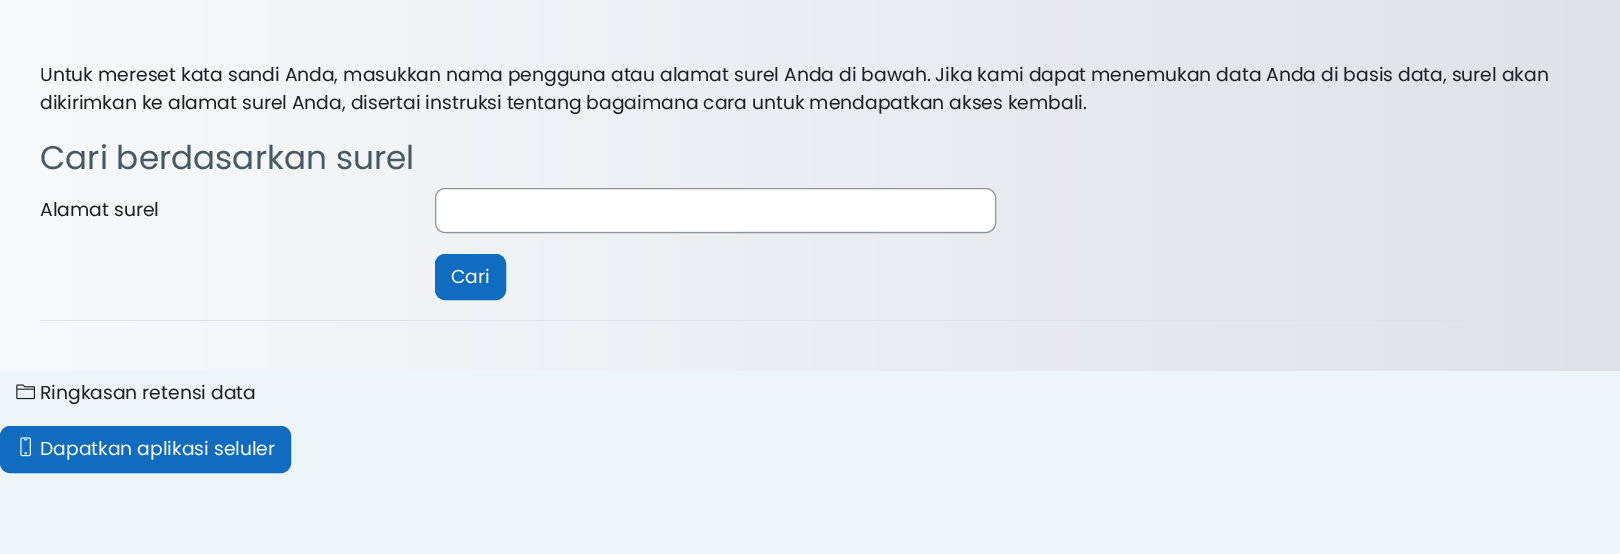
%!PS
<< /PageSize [1620 554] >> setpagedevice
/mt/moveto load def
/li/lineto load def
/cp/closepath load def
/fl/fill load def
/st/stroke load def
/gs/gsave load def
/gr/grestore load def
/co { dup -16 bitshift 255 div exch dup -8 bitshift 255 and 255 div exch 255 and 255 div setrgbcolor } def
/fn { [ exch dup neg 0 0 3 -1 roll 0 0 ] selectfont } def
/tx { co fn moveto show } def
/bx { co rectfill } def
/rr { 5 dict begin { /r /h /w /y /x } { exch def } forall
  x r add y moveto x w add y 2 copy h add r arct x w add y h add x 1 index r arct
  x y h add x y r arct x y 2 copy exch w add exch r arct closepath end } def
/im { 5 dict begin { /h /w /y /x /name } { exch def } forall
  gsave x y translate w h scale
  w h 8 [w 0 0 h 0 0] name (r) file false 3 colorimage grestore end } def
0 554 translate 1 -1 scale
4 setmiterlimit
0 0 1620 554 16#EEF5F9 bx
gs 0 0 mt 1620 0 li 1620 371 li 0 371 li cp clip newpath
<< /ShadingType 2 /ColorSpace /DeviceRGB /Coords [0 186 1620 186] /Extend [true true] /Function << /FunctionType 2 /Domain [0 1] /C0 [.973 .976 .98] /C1 [.871 .886 .902] /N 1 >> >> shfill gr
40 320 1424 1 16#DEE2E6 bx
16#FFFFFF co
436 189 559 42 9 rr fl
16#8F959E co
435.5 188.5 560 44 9.5 rr st
16#0F6CBF co
435.5 254.5 70 45 9.5 rr gs fl gr
st
(media/1.raw) 16 384 19 16 im
.5 426.5 290 46 9.5 rr gs fl gr
st
(media/2.raw) 20 437 11 20 im
(Untuk mereset kata sandi Anda, masukkan nama pengguna atau alamat surel Anda di bawah. Jika kami dapat menemukan data Anda di basis data, surel akan) 40 81 /Poppins-Regular 18.75 16#1D2125 tx
(dikirimkan ke alamat surel Anda, disertai instruksi tentang bagaimana cara untuk mendapatkan akses kembali.) 40 109 /Poppins-Regular 18.75 16#1D2125 tx
(Cari berdasarkan surel) 40 169 /Poppins-Regular 32.75 16#455A64 tx
(Alamat surel) 40 216 /Poppins-Regular 18.75 16#1D2125 tx
(Cari) 451 283 /Poppins-Regular 18.75 16#FFFFFF tx
(Ringkasan retensi data) 40 399 /Poppins-Regular 18.75 16#1D2125 tx
(Dapatkan aplikasi seluler) 40 455 /Poppins-Regular 18.75 16#FFFFFF tx
showpage
